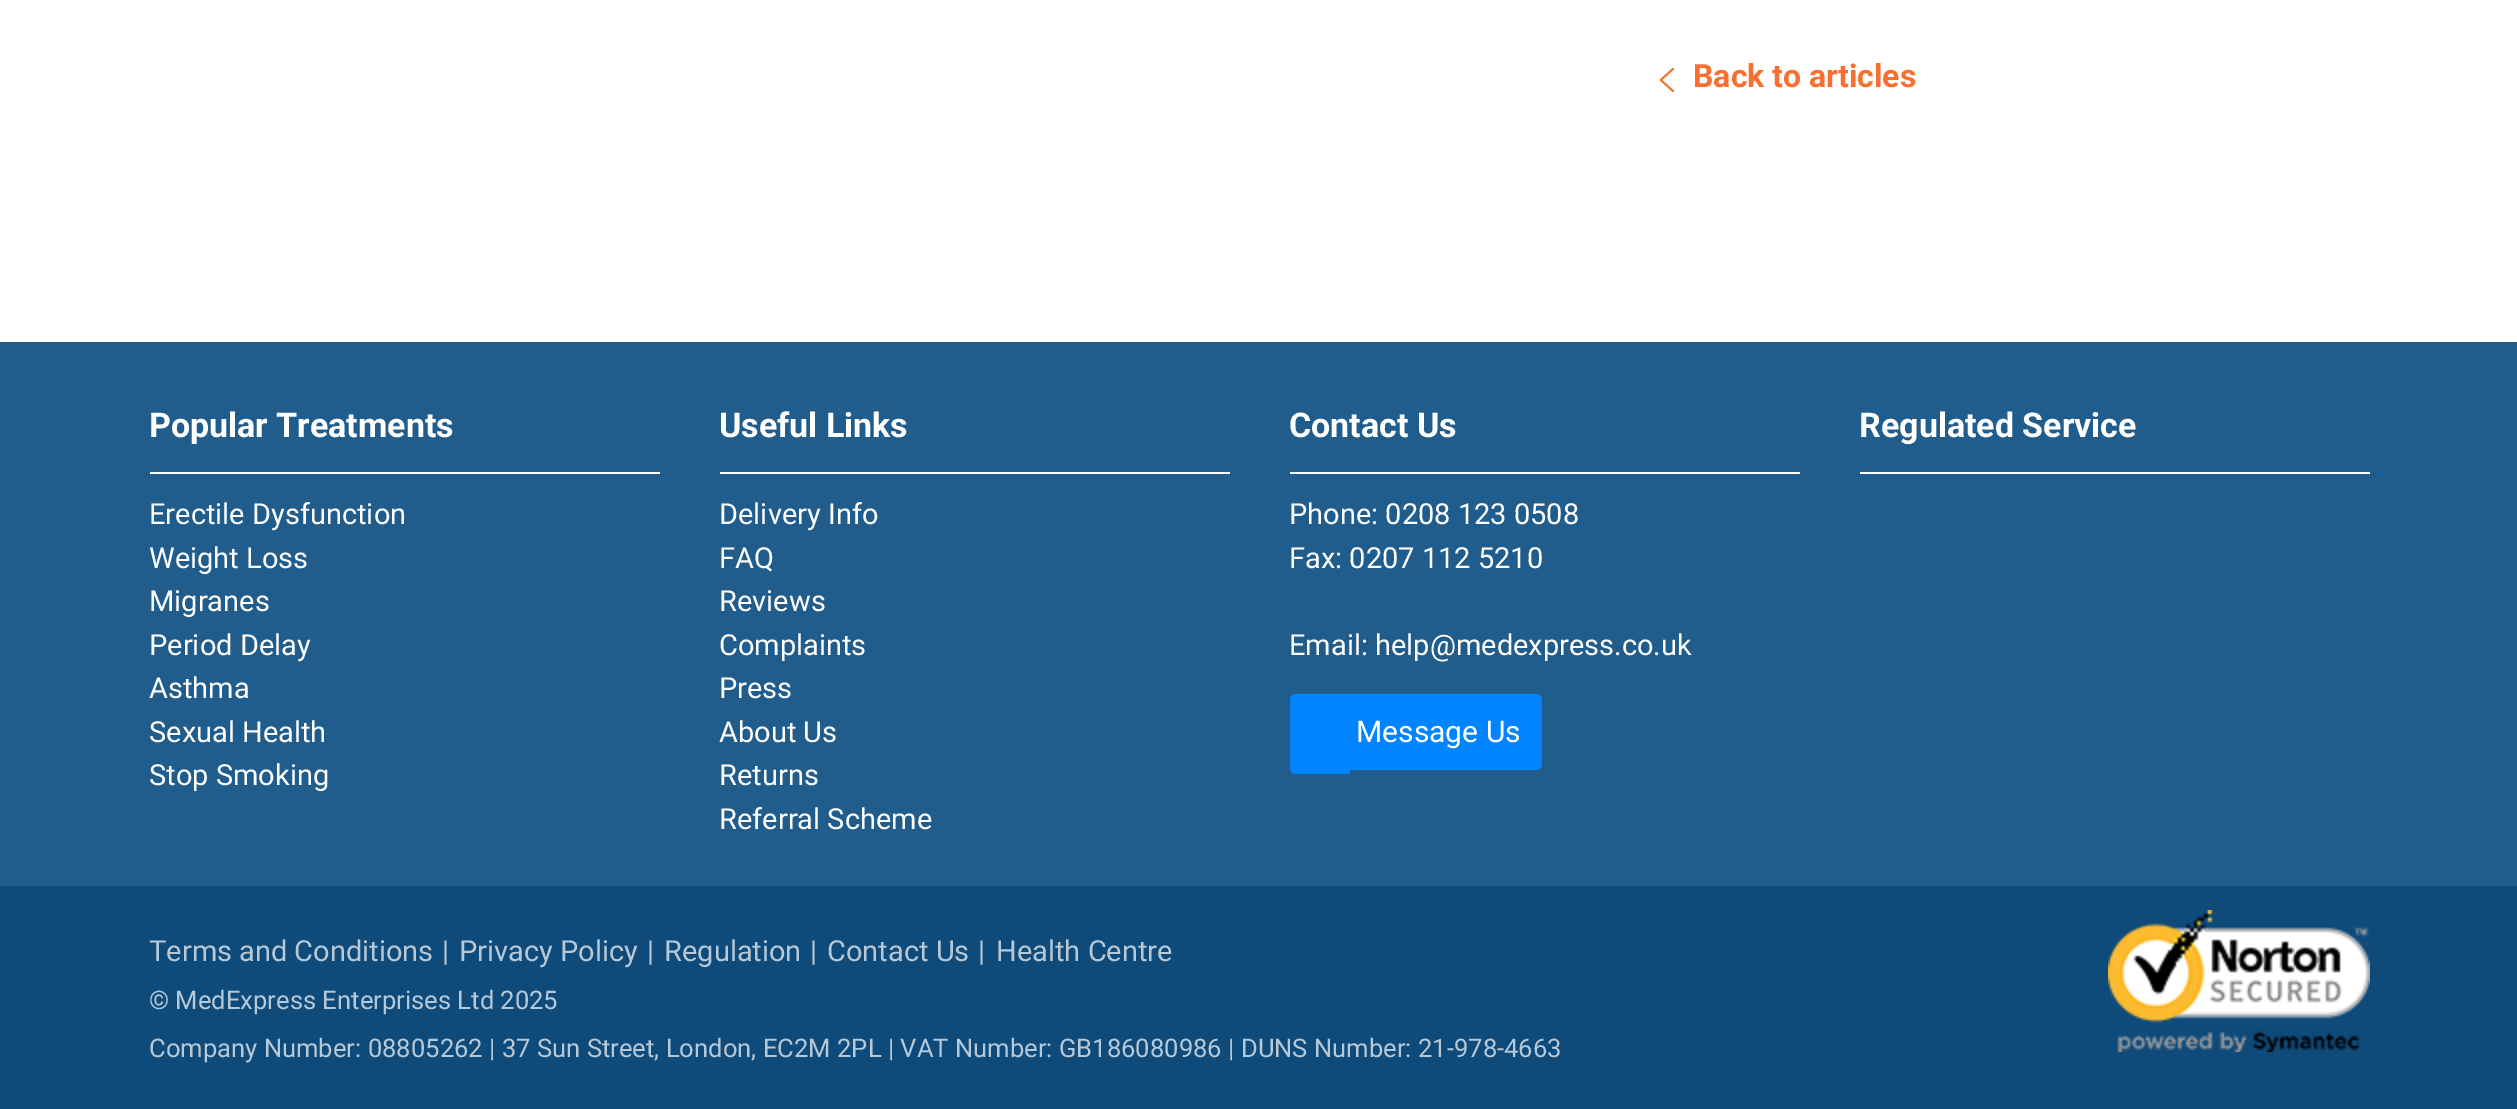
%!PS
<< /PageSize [2517 1109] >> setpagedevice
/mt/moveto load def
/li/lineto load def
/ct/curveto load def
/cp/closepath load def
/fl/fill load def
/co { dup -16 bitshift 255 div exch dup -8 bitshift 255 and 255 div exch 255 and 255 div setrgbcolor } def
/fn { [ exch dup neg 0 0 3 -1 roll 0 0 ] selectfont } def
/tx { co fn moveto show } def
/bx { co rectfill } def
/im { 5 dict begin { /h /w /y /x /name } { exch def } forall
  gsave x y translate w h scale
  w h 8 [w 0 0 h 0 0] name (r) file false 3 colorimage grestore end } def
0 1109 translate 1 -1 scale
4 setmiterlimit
0 0 2517 1109 16#FFFFFF bx
(media/1.raw) 1660 68 14 24 im
0 342 2517 544 16#205D8D bx
150 472 510 2 16#FFFFFF bx
720 472 510 2 16#FFFFFF bx
1290 472 510 2 16#FFFFFF bx
16#0084FF co
1296 694 mt 1350 694 li 1350 774 li 1296 774 li 1292.5 774 1290 771.5 1290 768 ct 1290 700 li 1290 696.5 1292.5 694 1296 694 ct cp fl
1350 694 6 76 16#0084FF bx
1356 694 mt 1536 694 li 1539.5 694 1542 696.5 1542 700 ct 1542 764 li 1542 767.5 1539.5 770 1536 770 ct 1356 770 li cp fl
1860 472 510 2 16#FFFFFF bx
0 886 2517 223 16#0E4A7A bx
(media/2.raw) 2108 910 262 142 im
(Back to articles) 1693 87 /Roboto-Bold 32 16#F86F30 tx
(Popular Treatments) 149 437 /Roboto-Bold 34 16#FFFFFF tx
(Erectile Dysfunction) 149 524 /Roboto-Regular 29 16#FFFFFF tx
(Weight Loss) 149 568 /Roboto-Regular 29 16#FFFFFF tx
(Migranes) 149 611 /Roboto-Regular 29 16#FFFFFF tx
(Period Delay) 149 655 /Roboto-Regular 29 16#FFFFFF tx
(Asthma) 149 698 /Roboto-Regular 29 16#FFFFFF tx
(Sexual Health) 149 742 /Roboto-Regular 29 16#FFFFFF tx
(Stop Smoking) 149 785 /Roboto-Regular 29 16#FFFFFF tx
(Useful Links) 719 437 /Roboto-Bold 34 16#FFFFFF tx
(Delivery Info) 719 524 /Roboto-Regular 29 16#FFFFFF tx
(FAQ) 719 568 /Roboto-Regular 29 16#FFFFFF tx
(Reviews) 719 611 /Roboto-Regular 29 16#FFFFFF tx
(Complaints) 719 655 /Roboto-Regular 29 16#FFFFFF tx
(Press) 719 698 /Roboto-Regular 29 16#FFFFFF tx
(About Us) 719 742 /Roboto-Regular 29 16#FFFFFF tx
(Returns) 719 785 /Roboto-Regular 29 16#FFFFFF tx
(Referral Scheme) 719 829 /Roboto-Regular 29 16#FFFFFF tx
(Contact Us) 1289 437 /Roboto-Bold 34 16#FFFFFF tx
(Phone: 0208 123 0508) 1289 524 /Roboto-Regular 29 16#FFFFFF tx
(Fax: 0207 112 5210) 1289 568 /Roboto-Regular 29 16#FFFFFF tx
(Email: help@medexpress.co.uk) 1289 655 /Roboto-Regular 29 16#FFFFFF tx
(Message Us) 1356 742 /Roboto-Regular 30 16#FFFFFF tx
(Regulated Service) 1859 437 /Roboto-Bold 34 16#FFFFFF tx
(Terms and Conditions) 149 961 /Roboto-Regular 29 16#B7C9D7 tx
(|) 442 961 /Roboto-Regular 29 16#B7C9D7 tx
(Privacy Policy) 459 961 /Roboto-Regular 29 16#B7C9D7 tx
(|) 647 961 /Roboto-Regular 29 16#B7C9D7 tx
(Regulation) 664 961 /Roboto-Regular 29 16#B7C9D7 tx
(|) 810 961 /Roboto-Regular 29 16#B7C9D7 tx
(Contact Us) 827 961 /Roboto-Regular 29 16#B7C9D7 tx
(|) 978 961 /Roboto-Regular 29 16#B7C9D7 tx
(Health Centre) 996 961 /Roboto-Regular 29 16#B7C9D7 tx
(© MedExpress Enterprises Ltd 2025) 149 1009 /Roboto-Regular 25.6 16#B7C9D7 tx
(Company Number: 08805262 | 37 Sun Street, London, EC2M 2PL | VAT Number: GB186080986 | DUNS Number: 21-978-4663) 149 1057 /Roboto-Regular 25.6 16#B7C9D7 tx
showpage
